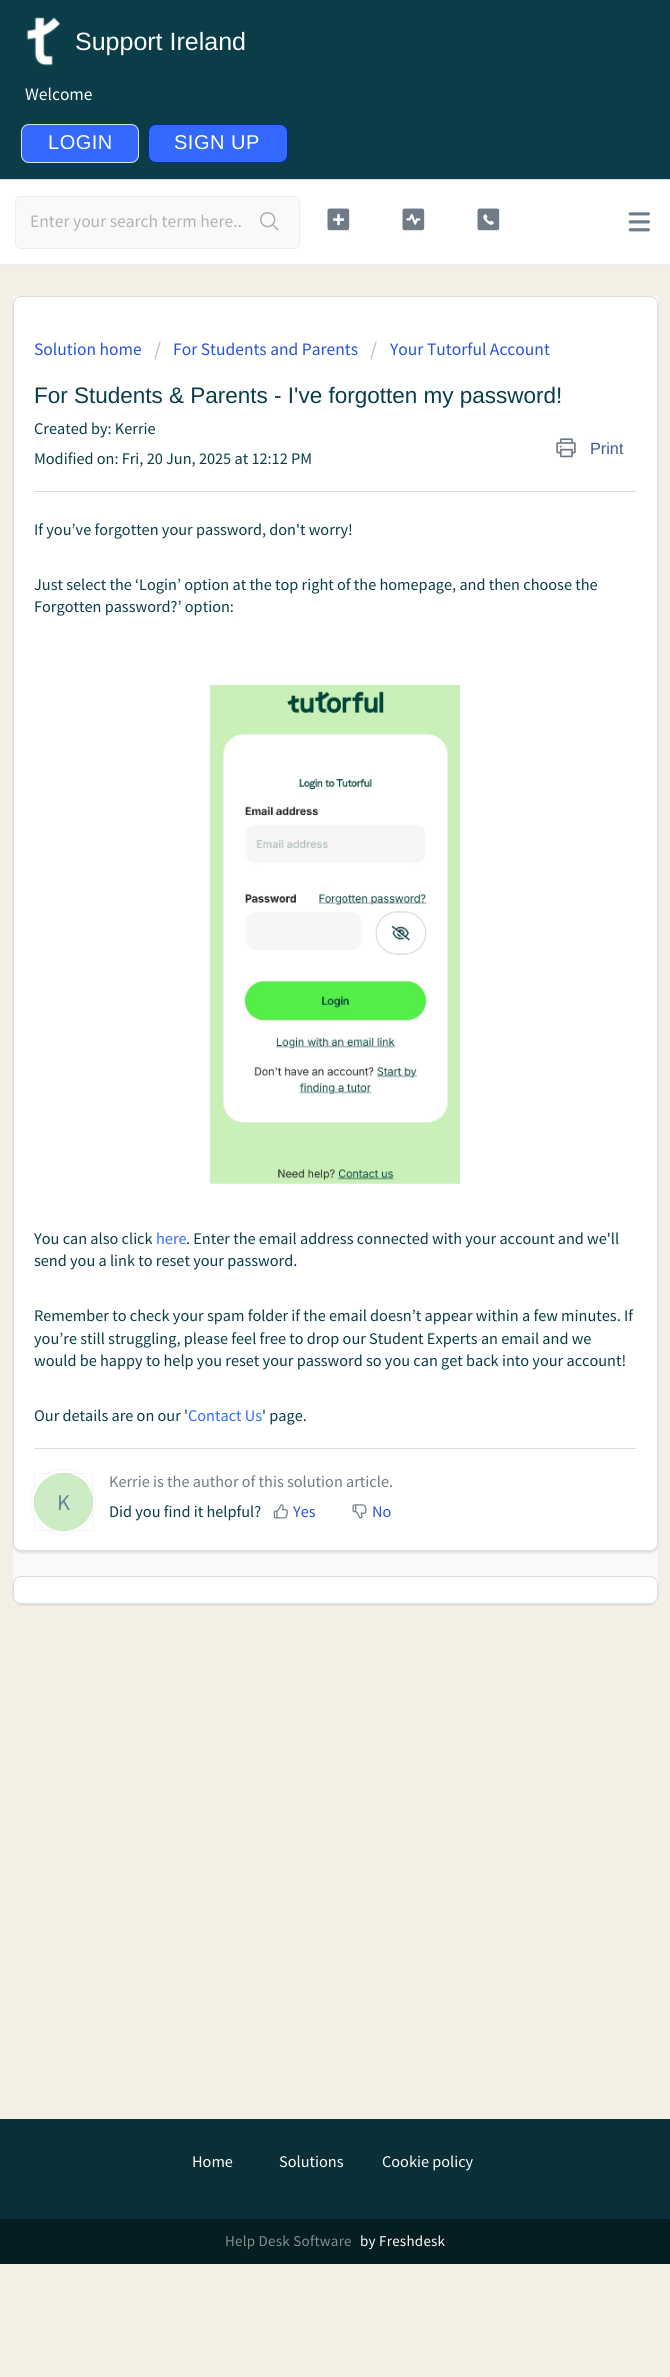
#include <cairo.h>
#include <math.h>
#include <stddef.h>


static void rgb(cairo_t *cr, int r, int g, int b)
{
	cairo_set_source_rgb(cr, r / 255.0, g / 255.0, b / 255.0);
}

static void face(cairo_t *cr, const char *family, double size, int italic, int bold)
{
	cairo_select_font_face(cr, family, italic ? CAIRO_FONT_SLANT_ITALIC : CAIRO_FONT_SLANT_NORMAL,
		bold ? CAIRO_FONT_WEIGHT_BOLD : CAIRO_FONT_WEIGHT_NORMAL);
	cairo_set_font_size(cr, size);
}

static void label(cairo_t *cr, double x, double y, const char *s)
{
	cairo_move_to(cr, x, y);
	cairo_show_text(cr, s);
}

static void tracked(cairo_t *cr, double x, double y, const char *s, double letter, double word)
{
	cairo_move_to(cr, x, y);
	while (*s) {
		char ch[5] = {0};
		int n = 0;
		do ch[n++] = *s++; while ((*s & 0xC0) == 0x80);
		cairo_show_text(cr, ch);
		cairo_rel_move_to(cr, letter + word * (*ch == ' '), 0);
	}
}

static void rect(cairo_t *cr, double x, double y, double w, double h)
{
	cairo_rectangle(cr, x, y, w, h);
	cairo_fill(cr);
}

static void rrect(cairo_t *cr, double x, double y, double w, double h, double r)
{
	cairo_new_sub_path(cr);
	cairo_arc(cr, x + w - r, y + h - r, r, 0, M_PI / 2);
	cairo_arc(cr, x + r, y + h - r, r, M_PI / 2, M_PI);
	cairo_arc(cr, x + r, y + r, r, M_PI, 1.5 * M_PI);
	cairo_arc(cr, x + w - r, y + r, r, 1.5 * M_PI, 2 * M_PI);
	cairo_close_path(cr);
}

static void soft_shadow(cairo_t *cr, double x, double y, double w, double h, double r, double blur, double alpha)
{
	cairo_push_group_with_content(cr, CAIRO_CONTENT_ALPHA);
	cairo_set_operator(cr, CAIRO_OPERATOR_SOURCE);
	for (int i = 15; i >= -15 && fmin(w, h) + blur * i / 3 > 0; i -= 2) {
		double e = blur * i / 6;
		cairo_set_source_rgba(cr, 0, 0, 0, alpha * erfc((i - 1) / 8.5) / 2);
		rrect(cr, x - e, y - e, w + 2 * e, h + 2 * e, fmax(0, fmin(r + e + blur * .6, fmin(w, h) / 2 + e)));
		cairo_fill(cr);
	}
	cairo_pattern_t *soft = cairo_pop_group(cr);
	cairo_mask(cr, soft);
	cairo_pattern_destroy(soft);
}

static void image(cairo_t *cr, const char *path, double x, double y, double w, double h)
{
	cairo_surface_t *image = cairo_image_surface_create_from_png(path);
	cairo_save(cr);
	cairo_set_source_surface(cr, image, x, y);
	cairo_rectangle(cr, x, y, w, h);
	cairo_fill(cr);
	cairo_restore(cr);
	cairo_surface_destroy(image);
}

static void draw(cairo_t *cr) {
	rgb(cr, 243, 239, 228);
	cairo_paint(cr);
	rgb(cr, 10, 61, 72);
	rect(cr, 0, 0, 670, 179);
	rgb(cr, 218, 223, 227);
	rect(cr, 0, 179, 670, 1);
	image(cr, "image0.png", 26, 17, 35, 49);
	face(cr, "Liberation Sans", 25, 0, 0);
	rgb(cr, 255, 255, 255);
	label(cr, 75, 50, "Support Ireland");
	face(cr, "Source Sans Pro", 17.5, 0, 0);
	label(cr, 25, 100, "Welcome");
	rgb(cr, 51, 105, 255);
	rrect(cr, 21.5, 124.5, 117, 38, 7.5);
	cairo_fill_preserve(cr);
	rgb(cr, 218, 223, 227);
	cairo_set_line_width(cr, 1);
	cairo_stroke(cr);
	face(cr, "Liberation Sans", 20, 0, 0);
	rgb(cr, 255, 255, 255);
	tracked(cr, 48, 149, "LOGIN", 0.5, 0);
	rgb(cr, 51, 105, 255);
	rrect(cr, 148.5, 124.5, 139, 38, 7.5);
	cairo_fill_preserve(cr);
	rgb(cr, 0, 41, 153);
	cairo_stroke(cr);
	rgb(cr, 255, 255, 255);
	tracked(cr, 174, 149, "SIGN UP", 0.5, 0);
	rgb(cr, 238, 238, 238);
	soft_shadow(cr, 0, 184, 670, 84, 0, 2.5, 1);
	rgb(cr, 255, 255, 255);
	rect(cr, 0, 180, 670, 84);
	image(cr, "image1.png", 628, 212, 22, 20);
	rgb(cr, 248, 249, 250);
	rrect(cr, 15.5, 196.5, 284, 52, 4.5);
	cairo_fill_preserve(cr);
	rgb(cr, 235, 238, 240);
	cairo_stroke(cr);
	face(cr, "Source Sans Pro", 17.5, 0, 0);
	rgb(cr, 178, 178, 178);
	label(cr, 30, 227, "Enter your search term here..");
	rgb(cr, 248, 249, 250);
	rrect(cr, 243, 198, 56, 50, 2.5);
	cairo_fill(cr);
	image(cr, "image2.png", 260, 212, 19, 19);
	image(cr, "image3.png", 327, 208, 23, 23);
	image(cr, "image4.png", 402, 208, 23, 23);
	image(cr, "image5.png", 477, 208, 23, 23);
	rect(cr, 13, 296, 645, 1308);
	rgb(cr, 63, 63, 68);
	soft_shadow(cr, 13, 298, 645, 1255, 8, 1, 0.15);
	rgb(cr, 255, 255, 255);
	rrect(cr, 13.5, 296.5, 644, 1254, 7.5);
	cairo_fill_preserve(cr);
	rgb(cr, 218, 223, 227);
	cairo_stroke(cr);
	rgb(cr, 39, 83, 215);
	label(cr, 34, 355, "Solution home");
	face(cr, "Source Sans Pro", 20, 0, 0);
	rgb(cr, 187, 187, 187);
	label(cr, 154, 356, "/");
	face(cr, "Source Sans Pro", 17.5, 0, 0);
	rgb(cr, 39, 83, 215);
	label(cr, 173, 355, "For Students and Parents");
	face(cr, "Source Sans Pro", 20, 0, 0);
	rgb(cr, 187, 187, 187);
	label(cr, 370, 356, "/");
	face(cr, "Source Sans Pro", 17.5, 0, 0);
	rgb(cr, 39, 83, 215);
	label(cr, 390, 355, "Your Tutorful Account");
	face(cr, "Liberation Sans", 22.5, 0, 0);
	rgb(cr, 10, 61, 72);
	label(cr, 34, 403, "For Students & Parents - I've forgotten my password!");
	image(cr, "image6.png", 556, 438, 20, 20);
	face(cr, "Liberation Sans", 16.25, 0, 0);
	rgb(cr, 59, 89, 152);
	label(cr, 590, 454, "Print");
	face(cr, "Source Sans Pro", 16.25, 0, 0);
	rgb(cr, 10, 61, 72);
	label(cr, 34, 434, "Created by: Kerrie");
	label(cr, 34, 464, "Modified on: Fri, 20 Jun, 2025 at 12:12 PM");
	rgb(cr, 220, 220, 220);
	rect(cr, 34, 491, 602, 1);
	rgb(cr, 10, 61, 72);
	label(cr, 34, 535, "If you’ve forgotten your password, don't worry!");
	label(cr, 34, 590, "Just select the ‘Login’ option at the top right of the homepage, and then choose the");
	label(cr, 34, 612, "Forgotten password?’ option:");
	image(cr, "image7.png", 210, 685, 250, 499);
	label(cr, 34, 1244, "You can also click");
	rgb(cr, 51, 105, 255);
	label(cr, 156, 1244, "here");
	rgb(cr, 10, 61, 72);
	label(cr, 186, 1244, ". Enter the email address connected with your account and we'll");
	label(cr, 34, 1266, "send you a link to reset your password.");
	label(cr, 34, 1321, "Remember to check your spam folder if the email doesn’t appear within a few minutes. If");
	label(cr, 34, 1344, "you’re still struggling, please feel free to drop our Student Experts an email and we");
	label(cr, 34, 1366, "would be happy to help you reset your password so you can get back into your account!");
	label(cr, 34, 1421, "Our details are on our '");
	rgb(cr, 51, 105, 255);
	label(cr, 188, 1421, "Contact Us");
	rgb(cr, 10, 61, 72);
	label(cr, 262, 1421, "' page.");
	rgb(cr, 220, 220, 220);
	rect(cr, 34, 1448, 602, 1);
	rgb(cr, 111, 124, 135);
	label(cr, 109, 1487, "Kerrie is the author of this solution article.");
	cairo_new_path(cr);
	cairo_arc(cr, 63, 1502, 32.5, 0, 2 * M_PI);
	rgb(cr, 243, 245, 247);
	cairo_stroke(cr);
	rgb(cr, 205, 235, 196);
	rrect(cr, 34, 1473, 59, 58, 29);
	cairo_fill(cr);
	cairo_rectangle(cr, 34.5, 1473.5, 58, 57);
	cairo_set_source_rgba(cr, 0, 0, 0, 0.04);
	cairo_stroke(cr);
	face(cr, "Source Sans Pro", 22.5, 0, 0);
	rgb(cr, 99, 134, 153);
	label(cr, 57, 1510, "K");
	face(cr, "Source Sans Pro", 16.25, 0, 0);
	rgb(cr, 10, 61, 72);
	label(cr, 109, 1517, "Did you find it helpful?");
	image(cr, "image8.png", 273, 1504, 15, 15);
	rgb(cr, 39, 83, 215);
	label(cr, 293, 1517, "Yes");
	image(cr, "image9.png", 352, 1504, 15, 15);
	label(cr, 372, 1517, "No");
	rgb(cr, 63, 63, 68);
	soft_shadow(cr, 13, 1578, 645, 27, 8, 1, 0.15);
	rgb(cr, 255, 255, 255);
	rrect(cr, 13.5, 1576.5, 644, 27, 7.5);
	cairo_fill_preserve(cr);
	rgb(cr, 218, 223, 227);
	cairo_stroke(cr);
	rgb(cr, 10, 47, 55);
	rect(cr, 0, 2119, 670, 100);
	rgb(cr, 255, 255, 255);
	label(cr, 192, 2167, "Home");
	label(cr, 279, 2167, "Solutions");
	label(cr, 382, 2167, "Cookie policy");
	rgb(cr, 6, 29, 33);
	rect(cr, 0, 2219, 670, 45);
	face(cr, "Source Sans Pro", 15, 0, 0);
	rgb(cr, 131, 142, 144);
	tracked(cr, 225, 2246, "Help Desk Software", 0.25, 0);
	rgb(cr, 255, 255, 255);
	tracked(cr, 360, 2246, "by Freshdesk", 0.25, 0);
}

int main(void) {
	cairo_surface_t *surface = cairo_image_surface_create(CAIRO_FORMAT_RGB24, 670, 2377);
	cairo_t *cr = cairo_create(surface);
	cairo_font_options_t *options = cairo_font_options_create();
	cairo_font_options_set_hint_metrics(options, CAIRO_HINT_METRICS_OFF);
	cairo_font_options_set_hint_style(options, CAIRO_HINT_STYLE_NONE);
	cairo_set_font_options(cr, options);
	cairo_set_miter_limit(cr, 4);
	draw(cr);
	cairo_surface_write_to_png(surface, "render.png");
	cairo_font_options_destroy(options);
	cairo_destroy(cr);
	cairo_surface_destroy(surface);
	return 0;
}
